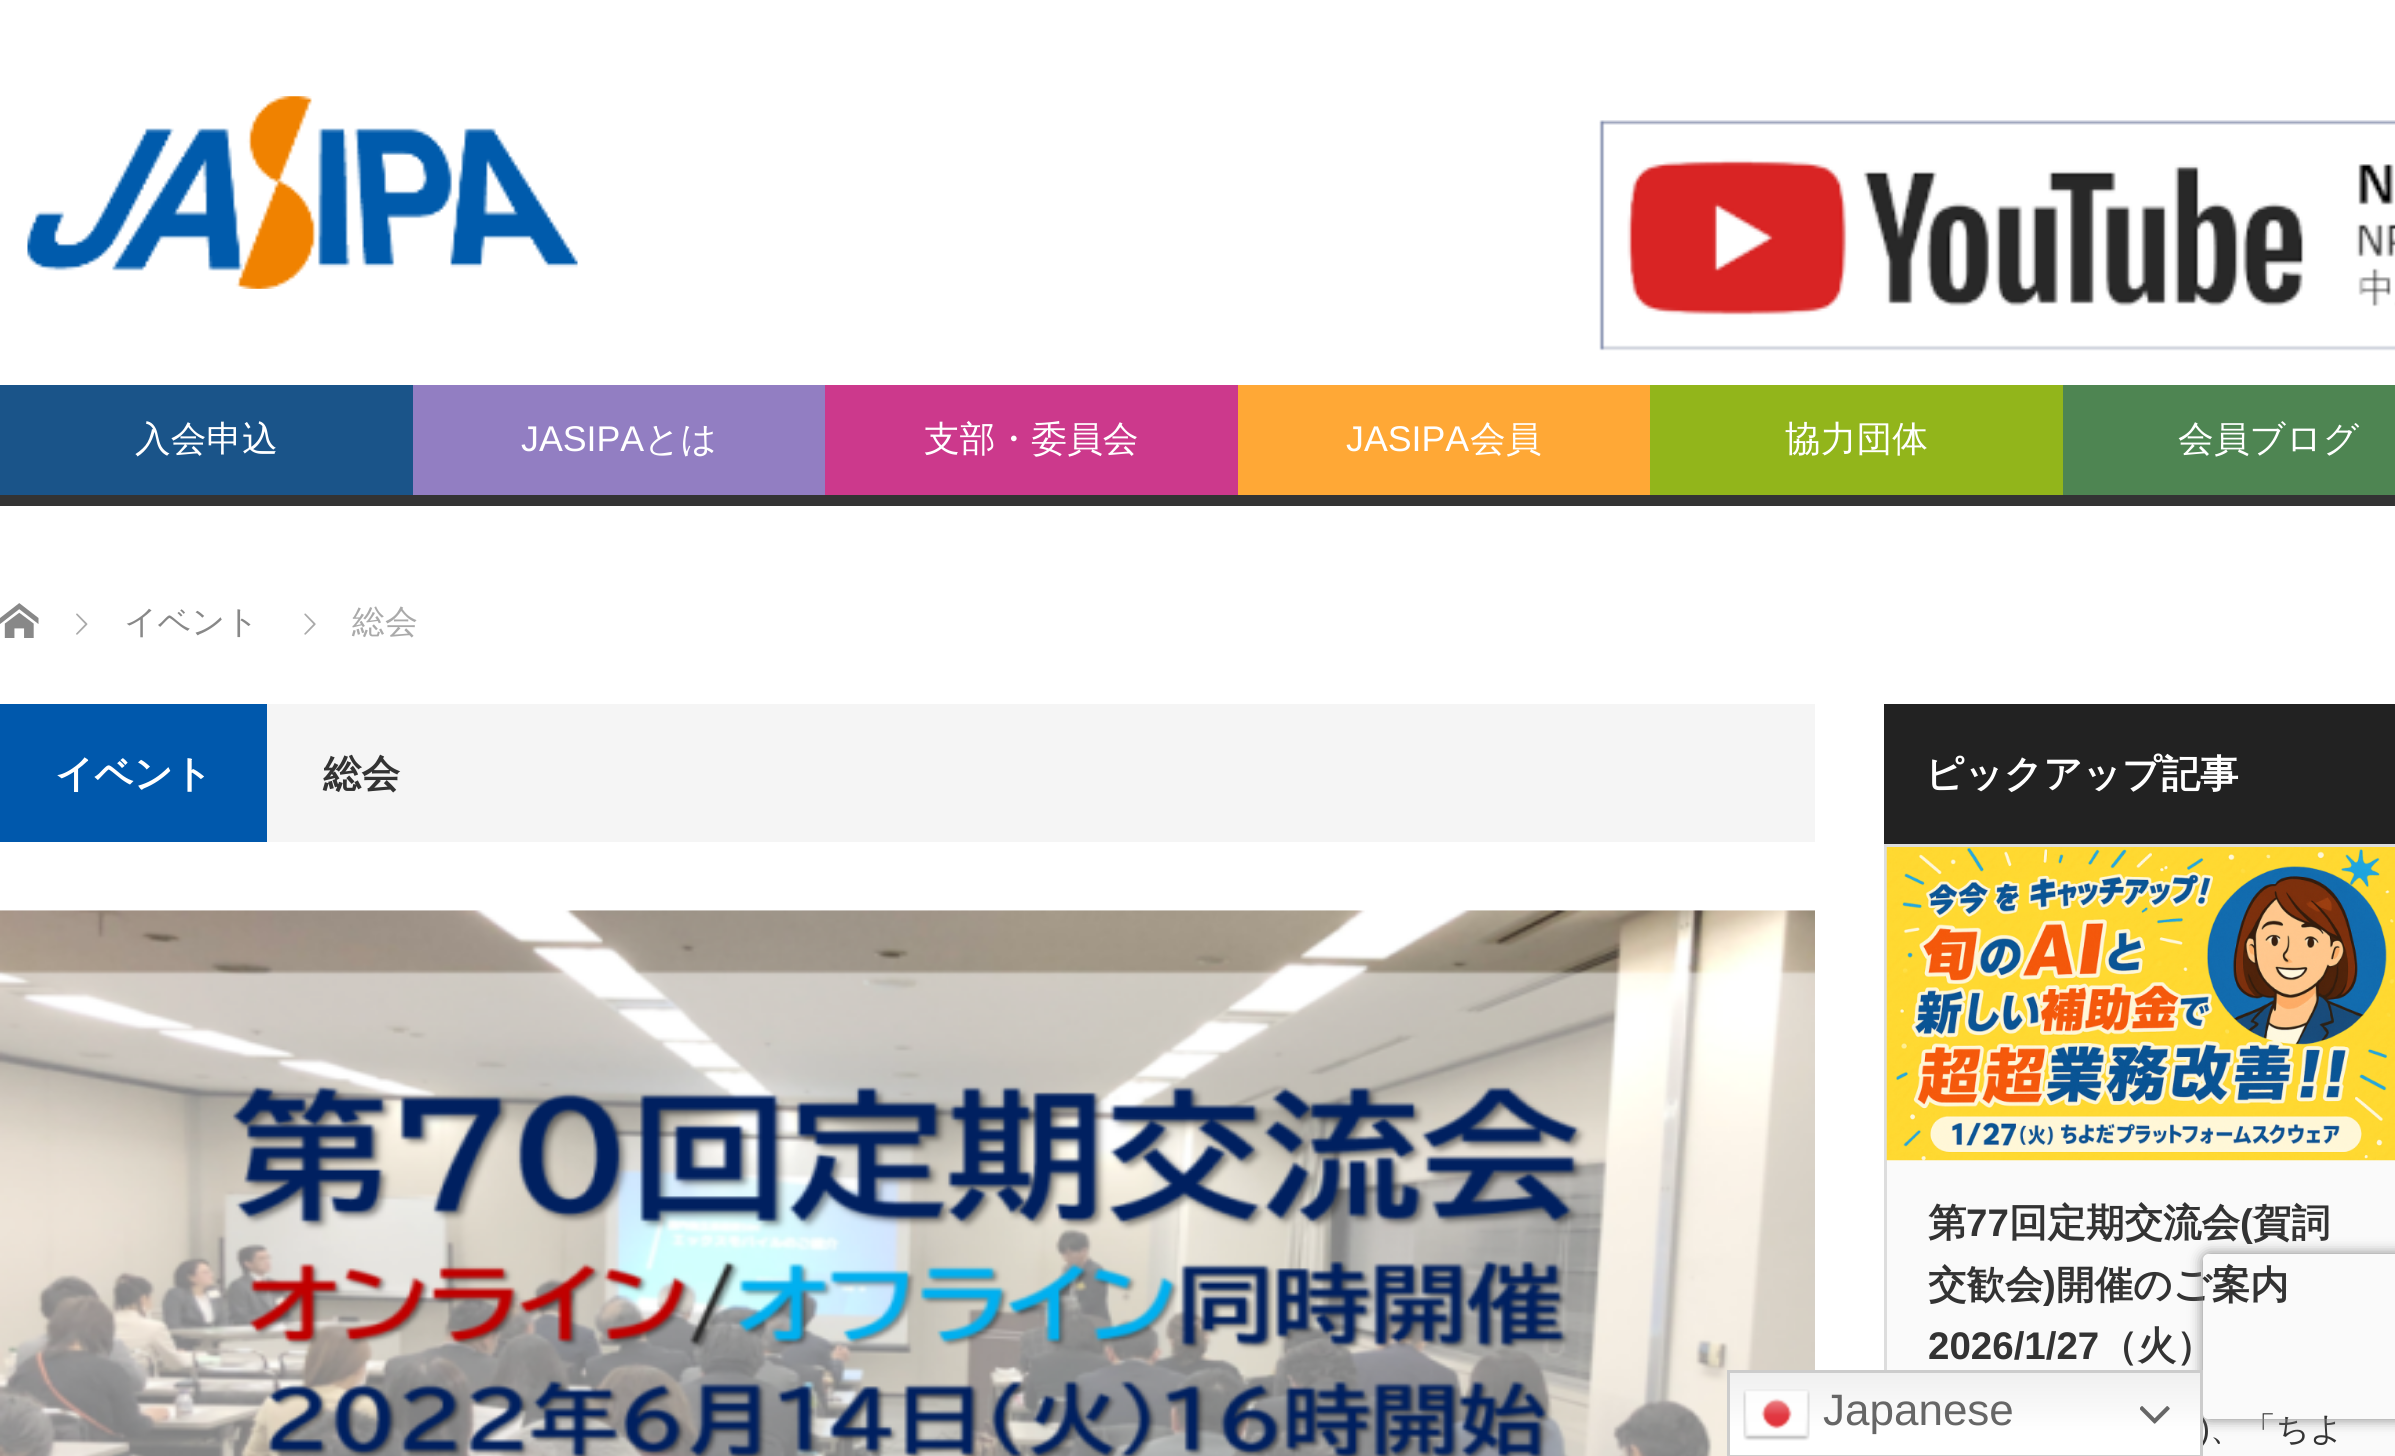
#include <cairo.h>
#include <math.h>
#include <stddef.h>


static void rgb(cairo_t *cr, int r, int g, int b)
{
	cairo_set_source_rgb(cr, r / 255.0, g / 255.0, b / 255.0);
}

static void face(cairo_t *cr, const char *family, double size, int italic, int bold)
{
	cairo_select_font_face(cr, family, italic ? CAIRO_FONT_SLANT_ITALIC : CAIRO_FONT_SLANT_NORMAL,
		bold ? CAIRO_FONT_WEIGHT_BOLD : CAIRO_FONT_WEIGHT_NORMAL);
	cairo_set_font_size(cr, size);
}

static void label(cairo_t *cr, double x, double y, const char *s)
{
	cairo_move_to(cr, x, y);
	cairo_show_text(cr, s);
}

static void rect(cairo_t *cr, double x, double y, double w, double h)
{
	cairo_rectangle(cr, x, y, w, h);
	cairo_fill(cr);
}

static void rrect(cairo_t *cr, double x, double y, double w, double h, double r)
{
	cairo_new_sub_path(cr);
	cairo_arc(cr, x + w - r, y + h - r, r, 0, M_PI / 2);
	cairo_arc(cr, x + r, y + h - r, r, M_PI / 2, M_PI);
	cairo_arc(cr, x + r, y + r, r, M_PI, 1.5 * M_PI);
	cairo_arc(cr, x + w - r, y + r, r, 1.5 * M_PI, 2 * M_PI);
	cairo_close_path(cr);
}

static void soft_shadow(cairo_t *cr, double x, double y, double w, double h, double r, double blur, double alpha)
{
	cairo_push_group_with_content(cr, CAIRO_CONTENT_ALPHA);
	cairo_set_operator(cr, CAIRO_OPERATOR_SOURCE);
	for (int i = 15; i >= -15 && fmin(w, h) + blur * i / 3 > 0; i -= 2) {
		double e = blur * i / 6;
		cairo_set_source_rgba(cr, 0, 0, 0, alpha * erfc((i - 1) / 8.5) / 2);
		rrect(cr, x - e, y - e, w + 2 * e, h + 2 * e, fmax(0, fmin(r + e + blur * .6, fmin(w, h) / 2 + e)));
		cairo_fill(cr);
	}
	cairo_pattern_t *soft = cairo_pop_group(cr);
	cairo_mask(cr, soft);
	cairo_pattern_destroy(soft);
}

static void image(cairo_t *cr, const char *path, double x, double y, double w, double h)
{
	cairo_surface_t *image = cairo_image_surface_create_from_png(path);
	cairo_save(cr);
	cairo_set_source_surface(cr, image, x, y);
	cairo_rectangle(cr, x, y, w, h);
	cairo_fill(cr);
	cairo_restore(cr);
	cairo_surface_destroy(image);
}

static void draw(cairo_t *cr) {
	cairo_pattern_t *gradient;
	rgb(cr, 255, 255, 255);
	cairo_paint(cr);
	rgb(cr, 51, 51, 51);
	rect(cr, 0, 495, 2395, 11);
	image(cr, "image0.png", 27, 96, 551, 193);
	image(cr, "image1.png", 1599, 120, 796, 231);
	rgb(cr, 26, 84, 137);
	rect(cr, 0, 385, 413, 110);
	face(cr, "WenQuanYi Zen Hei Medium", 35.75, 0, 0);
	rgb(cr, 255, 255, 255);
	label(cr, 135, 451, "入会申込");
	rgb(cr, 146, 126, 194);
	rect(cr, 413, 385, 412, 110);
	face(cr, "Liberation Sans", 35.75, 0, 0);
	rgb(cr, 255, 255, 255);
	label(cr, 521, 451, "JASIPA");
	face(cr, "WenQuanYi Zen Hei Medium", 35.75, 0, 0);
	label(cr, 644, 451, "とは");
	rgb(cr, 204, 57, 140);
	rect(cr, 825, 385, 413, 110);
	rgb(cr, 255, 255, 255);
	label(cr, 924, 451, "支部・委員会");
	rgb(cr, 255, 168, 54);
	rect(cr, 1238, 385, 412, 110);
	face(cr, "Liberation Sans", 35.75, 0, 0);
	rgb(cr, 255, 255, 255);
	label(cr, 1346, 451, "JASIPA");
	face(cr, "WenQuanYi Zen Hei Medium", 35.75, 0, 0);
	label(cr, 1470, 451, "会員");
	rgb(cr, 146, 181, 27);
	rect(cr, 1650, 385, 413, 110);
	rgb(cr, 255, 255, 255);
	label(cr, 1785, 451, "協力団体");
	rgb(cr, 78, 133, 82);
	rect(cr, 2063, 385, 332, 110);
	rgb(cr, 255, 255, 255);
	label(cr, 2178, 451, "会員ブログ");
	image(cr, "image2.png", 0, 603, 39, 35);
	image(cr, "image3.png", 76, 613, 12, 22);
	face(cr, "WenQuanYi Zen Hei Medium", 33, 0, 0);
	rgb(cr, 136, 136, 136);
	label(cr, 124, 633, "イベント");
	image(cr, "image4.png", 304, 613, 12, 22);
	rgb(cr, 170, 170, 170);
	label(cr, 352, 633, "総会");
	rgb(cr, 245, 245, 245);
	rect(cr, 267, 704, 1548, 138);
	rgb(cr, 0, 88, 172);
	rect(cr, 0, 704, 267, 138);
	face(cr, "WenQuanYi Zen Hei", 38.5, 0, 1);
	rgb(cr, 255, 255, 255);
	label(cr, 55, 787, "イベント");
	rgb(cr, 51, 51, 51);
	label(cr, 323, 787, "総会");
	image(cr, "image5.png", 0, 910, 1815, 546);
	rgb(cr, 250, 250, 250);
	rect(cr, 1887, 1160, 508, 296);
	rgb(cr, 34, 34, 34);
	rect(cr, 1884, 704, 511, 140);
	rgb(cr, 255, 255, 255);
	label(cr, 1925, 787, "ピックアップ記事");
	cairo_rectangle(cr, 1885.5, 845.5, 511, 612);
	rgb(cr, 221, 221, 221);
	cairo_set_line_width(cr, 3);
	cairo_stroke(cr);
	image(cr, "image6.png", 1886, 847, 509, 314);
	rgb(cr, 51, 51, 51);
	label(cr, 1928, 1236, "第");
	face(cr, "Liberation Sans", 38.5, 0, 1);
	label(cr, 1966, 1236, "77");
	face(cr, "WenQuanYi Zen Hei", 38.5, 0, 1);
	label(cr, 2009, 1236, "回定期交流会");
	face(cr, "Liberation Sans", 38.5, 0, 1);
	label(cr, 2240, 1236, "(");
	face(cr, "WenQuanYi Zen Hei", 38.5, 0, 1);
	label(cr, 2253, 1236, "賀詞");
	label(cr, 1928, 1298, "交歓会");
	face(cr, "Liberation Sans", 38.5, 0, 1);
	label(cr, 2043, 1298, ")");
	face(cr, "WenQuanYi Zen Hei", 38.5, 0, 1);
	label(cr, 2056, 1298, "開催のご案内");
	face(cr, "Liberation Sans", 38.5, 0, 1);
	label(cr, 1928, 1359, "2026/1/27");
	face(cr, "WenQuanYi Zen Hei", 38.5, 0, 1);
	label(cr, 2099, 1359, "（火）");
	face(cr, "Liberation Sans", 33, 0, 0);
	label(cr, 2199, 1440, ")");
	face(cr, "WenQuanYi Zen Hei Medium", 33, 0, 0);
	label(cr, 2210, 1440, "、「ちよ");
	cairo_save(cr);
	cairo_set_fill_rule(cr, CAIRO_FILL_RULE_EVEN_ODD);
	cairo_new_path(cr);
	cairo_move_to(cr, 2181, 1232);
	cairo_line_to(cr, 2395, 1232);
	cairo_line_to(cr, 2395, 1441);
	cairo_line_to(cr, 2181, 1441);
	cairo_close_path(cr);
	cairo_move_to(cr, 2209, 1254);
	cairo_line_to(cr, 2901, 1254);
	cairo_curve_to(cr, 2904.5, 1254, 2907, 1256.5, 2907, 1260);
	cairo_line_to(cr, 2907, 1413);
	cairo_curve_to(cr, 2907, 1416.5, 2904.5, 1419, 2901, 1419);
	cairo_line_to(cr, 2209, 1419);
	cairo_curve_to(cr, 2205.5, 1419, 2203, 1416.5, 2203, 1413);
	cairo_line_to(cr, 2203, 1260);
	cairo_curve_to(cr, 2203, 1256.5, 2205.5, 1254, 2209, 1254);
	cairo_close_path(cr);
	cairo_clip(cr);
	rgb(cr, 128, 128, 128);
	soft_shadow(cr, 2203, 1254, 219, 165, 6, 7, 1);
	cairo_restore(cr);
	gradient = cairo_pattern_create_linear(1965, 1370, 1965, 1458);
	cairo_pattern_add_color_stop_rgba(gradient, 0, 0.937, 0.937, 0.937, 1);
	cairo_pattern_add_color_stop_rgba(gradient, 0.7, 1, 1, 1, 1);
	cairo_set_source(cr, gradient);
	cairo_pattern_destroy(gradient);
	rect(cr, 1730, 1373, 470, 82);
	cairo_rectangle(cr, 1728.5, 1371.5, 473, 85);
	rgb(cr, 204, 204, 204);
	cairo_stroke(cr);
	image(cr, "image7.png", 1743, 1389, 67, 52);
	face(cr, "Liberation Sans", 44, 0, 0);
	rgb(cr, 102, 102, 102);
	label(cr, 1823, 1425, "Japanese");
	image(cr, "image8.png", 2140, 1406, 30, 18);
}

int main(void) {
	cairo_surface_t *surface = cairo_image_surface_create(CAIRO_FORMAT_RGB24, 2395, 1456);
	cairo_t *cr = cairo_create(surface);
	cairo_font_options_t *options = cairo_font_options_create();
	cairo_font_options_set_hint_metrics(options, CAIRO_HINT_METRICS_OFF);
	cairo_font_options_set_hint_style(options, CAIRO_HINT_STYLE_NONE);
	cairo_set_font_options(cr, options);
	cairo_set_miter_limit(cr, 4);
	draw(cr);
	cairo_surface_write_to_png(surface, "render.png");
	cairo_font_options_destroy(options);
	cairo_destroy(cr);
	cairo_surface_destroy(surface);
	return 0;
}
